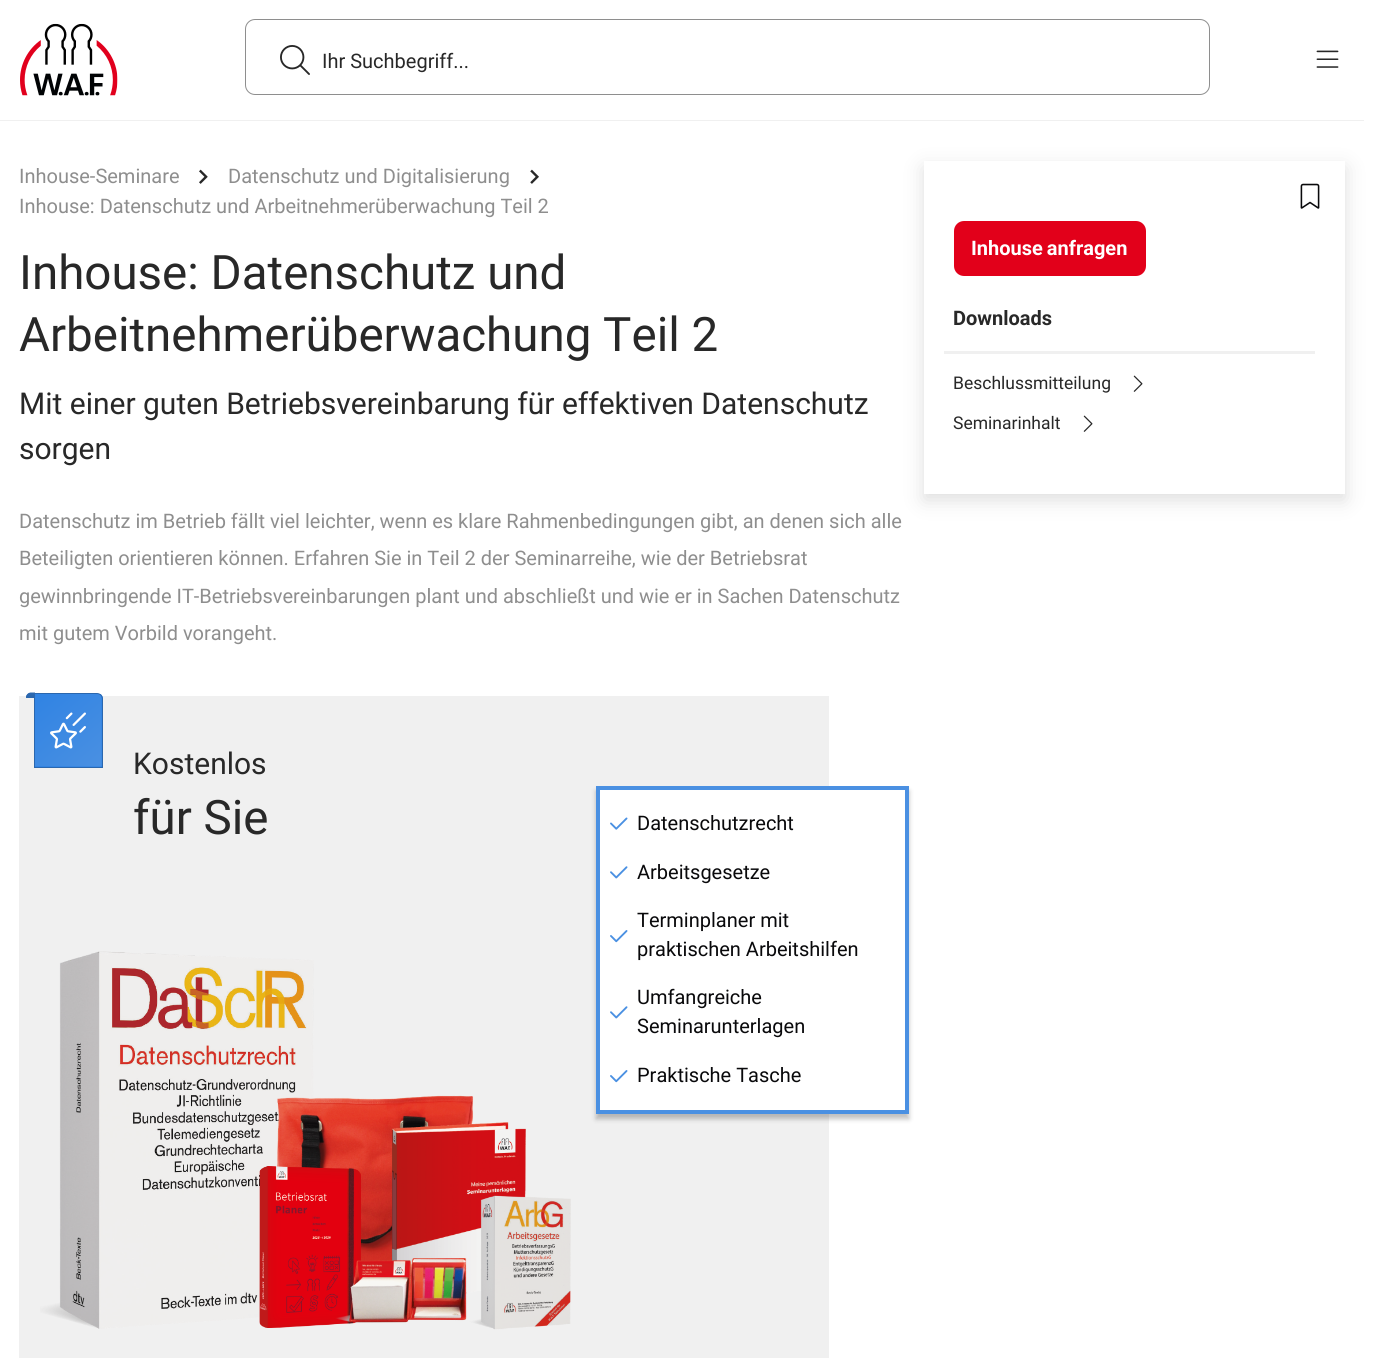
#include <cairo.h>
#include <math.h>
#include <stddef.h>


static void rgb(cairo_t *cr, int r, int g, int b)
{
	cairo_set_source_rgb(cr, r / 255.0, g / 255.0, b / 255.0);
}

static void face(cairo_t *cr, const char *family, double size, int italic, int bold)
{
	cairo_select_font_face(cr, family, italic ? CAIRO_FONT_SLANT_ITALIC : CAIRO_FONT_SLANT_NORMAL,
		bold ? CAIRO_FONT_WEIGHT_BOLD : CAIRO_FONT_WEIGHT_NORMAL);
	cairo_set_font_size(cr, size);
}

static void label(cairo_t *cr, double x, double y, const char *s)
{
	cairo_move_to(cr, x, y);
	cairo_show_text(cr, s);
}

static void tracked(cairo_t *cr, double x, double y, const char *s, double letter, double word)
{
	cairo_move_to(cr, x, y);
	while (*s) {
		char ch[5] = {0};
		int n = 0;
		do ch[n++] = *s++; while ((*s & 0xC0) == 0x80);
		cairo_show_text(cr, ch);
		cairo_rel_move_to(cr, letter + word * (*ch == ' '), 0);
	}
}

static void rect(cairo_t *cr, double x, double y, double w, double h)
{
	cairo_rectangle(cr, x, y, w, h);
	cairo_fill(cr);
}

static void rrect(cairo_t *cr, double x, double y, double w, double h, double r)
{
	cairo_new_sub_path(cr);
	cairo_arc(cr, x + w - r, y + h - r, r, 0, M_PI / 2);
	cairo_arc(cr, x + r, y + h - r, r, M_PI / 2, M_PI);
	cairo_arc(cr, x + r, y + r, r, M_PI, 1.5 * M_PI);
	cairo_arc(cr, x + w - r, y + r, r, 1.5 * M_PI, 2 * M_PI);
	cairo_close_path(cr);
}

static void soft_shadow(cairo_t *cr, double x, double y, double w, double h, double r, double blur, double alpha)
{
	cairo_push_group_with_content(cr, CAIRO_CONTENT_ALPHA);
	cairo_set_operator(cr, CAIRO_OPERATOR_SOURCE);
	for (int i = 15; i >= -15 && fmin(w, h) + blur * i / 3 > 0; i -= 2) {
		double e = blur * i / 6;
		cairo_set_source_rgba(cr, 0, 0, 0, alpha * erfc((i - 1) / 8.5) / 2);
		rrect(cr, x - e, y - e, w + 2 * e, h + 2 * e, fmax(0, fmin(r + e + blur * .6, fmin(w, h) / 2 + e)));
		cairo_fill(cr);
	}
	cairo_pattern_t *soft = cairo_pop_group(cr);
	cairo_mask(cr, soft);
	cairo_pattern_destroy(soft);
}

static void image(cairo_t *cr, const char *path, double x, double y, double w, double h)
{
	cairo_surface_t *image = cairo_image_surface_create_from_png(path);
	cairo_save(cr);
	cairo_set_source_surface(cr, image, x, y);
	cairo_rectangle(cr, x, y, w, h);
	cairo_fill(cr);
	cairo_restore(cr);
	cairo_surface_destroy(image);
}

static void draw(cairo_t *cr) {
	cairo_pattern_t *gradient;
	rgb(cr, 255, 255, 255);
	cairo_paint(cr);
	rgb(cr, 240, 240, 240);
	rect(cr, 0, 120, 1364, 1);
	image(cr, "image0.png", 20, 23, 98, 73);
	image(cr, "image1.png", 280, 45, 30, 30);
	rrect(cr, 245.5, 19.5, 964, 75, 9.5);
	rgb(cr, 142, 142, 142);
	cairo_set_line_width(cr, 1);
	cairo_stroke(cr);
	face(cr, "Roboto", 20, 0, 0);
	rgb(cr, 40, 40, 40);
	label(cr, 322, 68, "Ihr Suchbegriff...");
	image(cr, "image2.png", 1316, 50, 23, 18);
	rgb(cr, 142, 142, 142);
	label(cr, 19, 183, "Inhouse-Seminare");
	image(cr, "image3.png", 199, 169, 9, 15);
	label(cr, 228, 183, "Datenschutz und Digitalisierung");
	image(cr, "image4.png", 530, 169, 9, 15);
	label(cr, 19, 213, "Inhouse: Datenschutz und Arbeitnehmerüberwachung Teil 2");
	face(cr, "Roboto", 47.5, 0, 0);
	rgb(cr, 40, 40, 40);
	label(cr, 19, 289, "Inhouse: Datenschutz und");
	label(cr, 19, 351, "Arbeitnehmerüberwachung Teil 2");
	face(cr, "Roboto", 30, 0, 0);
	label(cr, 19, 414, "Mit einer guten Betriebsvereinbarung für effektiven Datenschutz");
	label(cr, 19, 459, "sorgen");
	face(cr, "Roboto", 20, 0, 0);
	rgb(cr, 142, 142, 142);
	label(cr, 19, 528, "Datenschutz im Betrieb fällt viel leichter, wenn es klare Rahmenbedingungen gibt, an denen sich alle");
	label(cr, 19, 565, "Beteiligten orientieren können. Erfahren Sie in Teil 2 der Seminarreihe, wie der Betriebsrat");
	label(cr, 19, 603, "gewinnbringende IT-Betriebsvereinbarungen plant und abschließt und wie er in Sachen Datenschutz");
	label(cr, 19, 640, "mit gutem Vorbild vorangeht.");
	rgb(cr, 240, 240, 240);
	rect(cr, 19, 696, 810, 662);
	gradient = cairo_pattern_create_linear(37, 692, 100, 768);
	cairo_pattern_add_color_stop_rgba(gradient, 0, 0.188, 0.514, 0.89, 1);
	cairo_pattern_add_color_stop_rgba(gradient, 1, 0.29, 0.565, 0.886, 1);
	cairo_set_source(cr, gradient);
	cairo_pattern_destroy(gradient);
	rect(cr, 35, 694, 66, 72);
	cairo_save(cr);
	cairo_new_path(cr);
	cairo_move_to(cr, 34, 693);
	cairo_line_to(cr, 97, 693);
	cairo_curve_to(cr, 100.5, 693, 103, 695.5, 103, 699);
	cairo_line_to(cr, 103, 768);
	cairo_line_to(cr, 34, 768);
	cairo_close_path(cr);
	cairo_clip(cr);
	gradient = cairo_pattern_create_linear(103, 692, 166, 768);
	cairo_pattern_add_color_stop_rgba(gradient, 0, 0.188, 0.514, 0.89, 1);
	cairo_pattern_add_color_stop_rgba(gradient, 1, 0.29, 0.565, 0.886, 1);
	cairo_set_source(cr, gradient);
	cairo_pattern_destroy(gradient);
	rect(cr, 101, 694, 2, 72);
	cairo_restore(cr);
	gradient = cairo_pattern_create_linear(37, 765, 100, 840);
	cairo_pattern_add_color_stop_rgba(gradient, 0, 0.188, 0.514, 0.89, 1);
	cairo_pattern_add_color_stop_rgba(gradient, 1, 0.29, 0.565, 0.886, 1);
	cairo_set_source(cr, gradient);
	cairo_pattern_destroy(gradient);
	rect(cr, 35, 766, 66, 1);
	gradient = cairo_pattern_create_linear(103, 765, 166, 840);
	cairo_pattern_add_color_stop_rgba(gradient, 0, 0.188, 0.514, 0.89, 1);
	cairo_pattern_add_color_stop_rgba(gradient, 1, 0.29, 0.565, 0.886, 1);
	cairo_set_source(cr, gradient);
	cairo_pattern_destroy(gradient);
	rect(cr, 101, 766, 2, 1);
	cairo_new_path(cr);
	cairo_move_to(cr, 34.5, 693.5);
	cairo_line_to(cr, 97, 693.5);
	cairo_curve_to(cr, 100, 693.5, 102.5, 696, 102.5, 699);
	cairo_line_to(cr, 102.5, 767.5);
	cairo_line_to(cr, 34.5, 767.5);
	cairo_close_path(cr);
	rgb(cr, 43, 103, 174);
	cairo_stroke(cr);
	cairo_new_path(cr);
	cairo_move_to(cr, 31, 693);
	cairo_line_to(cr, 35, 693);
	cairo_line_to(cr, 35, 698);
	cairo_line_to(cr, 26, 698);
	cairo_curve_to(cr, 26, 695, 28, 693, 31, 693);
	cairo_close_path(cr);
	cairo_fill(cr);
	cairo_set_fill_rule(cr, CAIRO_FILL_RULE_EVEN_ODD);
	cairo_new_path(cr);
	cairo_move_to(cr, 31, 692.5);
	cairo_line_to(cr, 35, 692.5);
	cairo_line_to(cr, 35, 697.5);
	cairo_line_to(cr, 26, 697.5);
	cairo_curve_to(cr, 26, 694.5, 28.5, 692.5, 31, 692.5);
	cairo_close_path(cr);
	cairo_move_to(cr, 31, 694);
	cairo_line_to(cr, 35, 694);
	cairo_line_to(cr, 35, 696);
	cairo_line_to(cr, 27.5, 696);
	cairo_line_to(cr, 27.5, 697.5);
	cairo_curve_to(cr, 27.5, 695.5, 29, 694, 31, 694);
	cairo_close_path(cr);
	cairo_fill(cr);
	image(cr, "image5.png", 50, 712, 36, 37);
	face(cr, "Roboto", 30, 0, 0);
	rgb(cr, 40, 40, 40);
	label(cr, 133, 774, "Kostenlos");
	face(cr, "Roboto", 47.5, 0, 0);
	label(cr, 133, 834, "für Sie");
	image(cr, "image6.png", 40, 951, 531, 379);
	rgb(cr, 0, 0, 0);
	soft_shadow(cr, 596, 791, 313, 328, 0, 2.5, 0.25);
	rgb(cr, 255, 255, 255);
	cairo_rectangle(cr, 598, 788, 309, 324);
	cairo_fill_preserve(cr);
	rgb(cr, 74, 144, 226);
	cairo_set_line_width(cr, 4);
	cairo_stroke(cr);
	image(cr, "image7.png", 610, 817, 18, 13);
	face(cr, "Roboto", 20, 0, 0);
	rgb(cr, 9, 9, 11);
	label(cr, 637, 830, "Datenschutzrecht");
	image(cr, "image8.png", 610, 866, 18, 13);
	label(cr, 637, 879, "Arbeitsgesetze");
	image(cr, "image9.png", 610, 930, 18, 13);
	label(cr, 637, 927, "Terminplaner mit");
	label(cr, 637, 956, "praktischen Arbeitshilfen");
	image(cr, "image8.png", 610, 1006, 18, 13);
	label(cr, 637, 1004, "Umfangreiche");
	label(cr, 637, 1033, "Seminarunterlagen");
	image(cr, "image9.png", 610, 1070, 18, 13);
	label(cr, 637, 1082, "Praktische Tasche");
	rgb(cr, 222, 222, 222);
	soft_shadow(cr, 924, 168, 421, 332, 0, 9.5, 1);
	rgb(cr, 255, 255, 255);
	rect(cr, 924, 161, 421, 333);
	image(cr, "image10.png", 1300, 183, 20, 26);
	rgb(cr, 226, 0, 26);
	rrect(cr, 954, 221, 192, 55, 10);
	cairo_fill(cr);
	face(cr, "Roboto", 20, 0, 1);
	rgb(cr, 255, 255, 255);
	tracked(cr, 971, 255, "Inhouse anfragen", 0, -1);
	rgb(cr, 40, 40, 40);
	label(cr, 953, 325, "Downloads");
	rgb(cr, 240, 240, 240);
	rect(cr, 944, 351, 371, 3);
	face(cr, "Roboto", 17.5, 0, 0);
	rgb(cr, 40, 40, 40);
	label(cr, 953, 389, "Beschlussmitteilung");
	image(cr, "image11.png", 1133, 375, 10, 17);
	label(cr, 953, 429, "Seminarinhalt");
	image(cr, "image11.png", 1083, 415, 10, 17);
}

int main(void) {
	cairo_surface_t *surface = cairo_image_surface_create(CAIRO_FORMAT_RGB24, 1382, 1358);
	cairo_t *cr = cairo_create(surface);
	cairo_font_options_t *options = cairo_font_options_create();
	cairo_font_options_set_hint_metrics(options, CAIRO_HINT_METRICS_OFF);
	cairo_font_options_set_hint_style(options, CAIRO_HINT_STYLE_NONE);
	cairo_set_font_options(cr, options);
	cairo_set_miter_limit(cr, 4);
	draw(cr);
	cairo_surface_write_to_png(surface, "render.png");
	cairo_font_options_destroy(options);
	cairo_destroy(cr);
	cairo_surface_destroy(surface);
	return 0;
}
